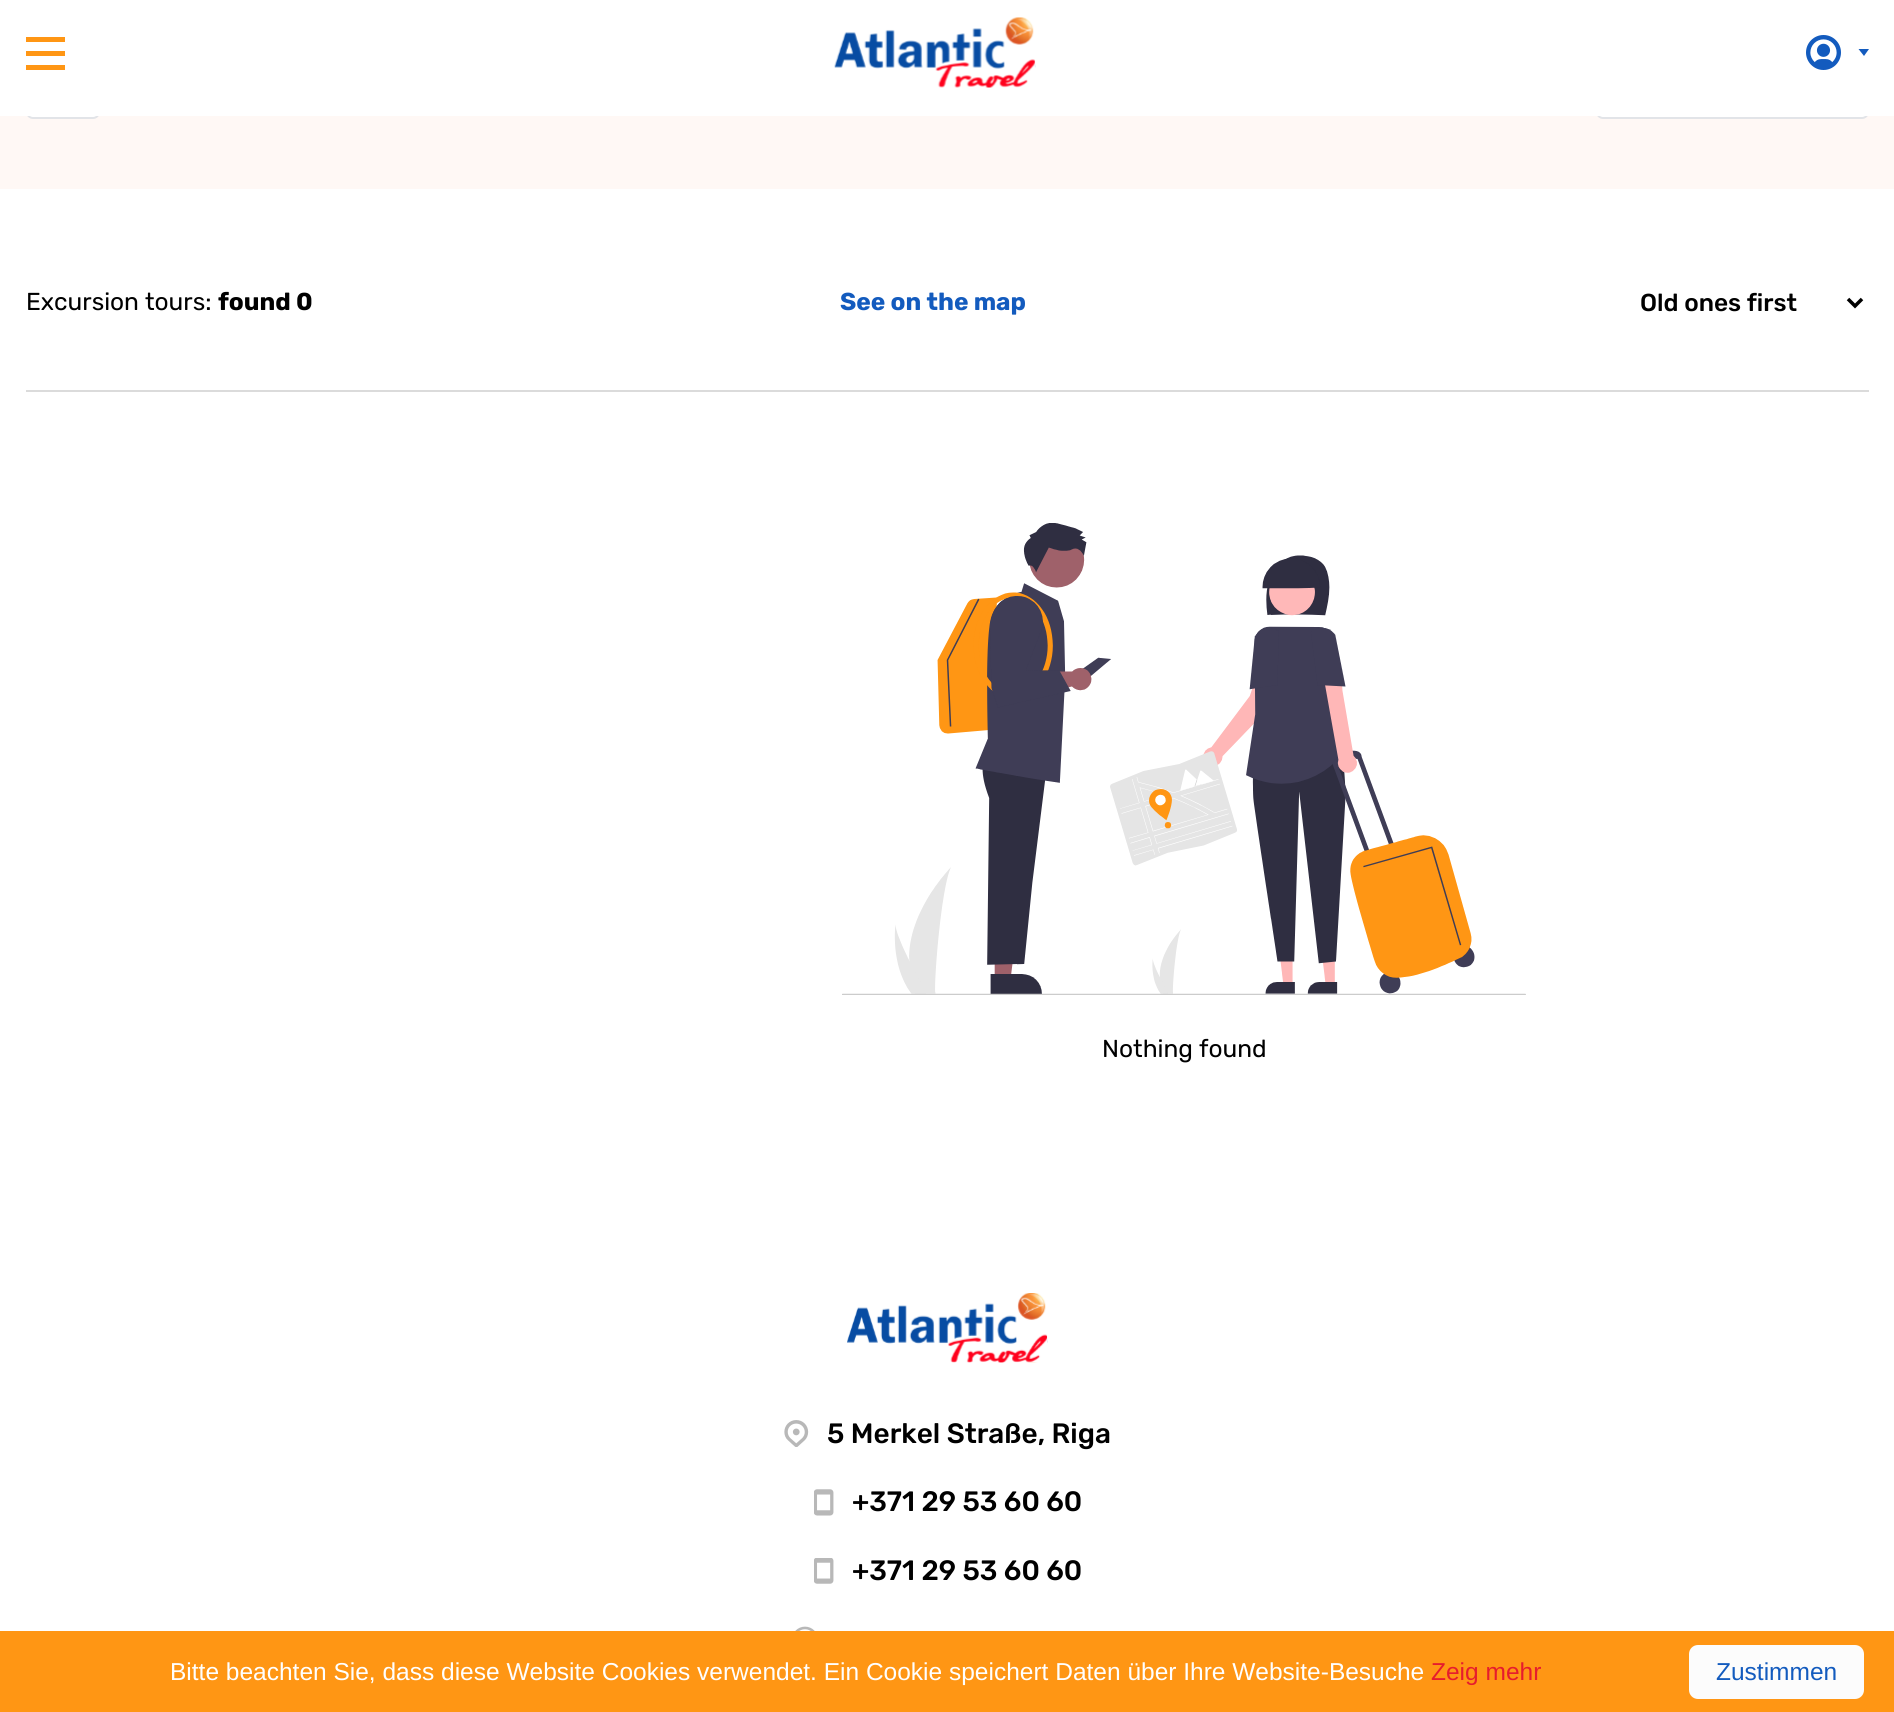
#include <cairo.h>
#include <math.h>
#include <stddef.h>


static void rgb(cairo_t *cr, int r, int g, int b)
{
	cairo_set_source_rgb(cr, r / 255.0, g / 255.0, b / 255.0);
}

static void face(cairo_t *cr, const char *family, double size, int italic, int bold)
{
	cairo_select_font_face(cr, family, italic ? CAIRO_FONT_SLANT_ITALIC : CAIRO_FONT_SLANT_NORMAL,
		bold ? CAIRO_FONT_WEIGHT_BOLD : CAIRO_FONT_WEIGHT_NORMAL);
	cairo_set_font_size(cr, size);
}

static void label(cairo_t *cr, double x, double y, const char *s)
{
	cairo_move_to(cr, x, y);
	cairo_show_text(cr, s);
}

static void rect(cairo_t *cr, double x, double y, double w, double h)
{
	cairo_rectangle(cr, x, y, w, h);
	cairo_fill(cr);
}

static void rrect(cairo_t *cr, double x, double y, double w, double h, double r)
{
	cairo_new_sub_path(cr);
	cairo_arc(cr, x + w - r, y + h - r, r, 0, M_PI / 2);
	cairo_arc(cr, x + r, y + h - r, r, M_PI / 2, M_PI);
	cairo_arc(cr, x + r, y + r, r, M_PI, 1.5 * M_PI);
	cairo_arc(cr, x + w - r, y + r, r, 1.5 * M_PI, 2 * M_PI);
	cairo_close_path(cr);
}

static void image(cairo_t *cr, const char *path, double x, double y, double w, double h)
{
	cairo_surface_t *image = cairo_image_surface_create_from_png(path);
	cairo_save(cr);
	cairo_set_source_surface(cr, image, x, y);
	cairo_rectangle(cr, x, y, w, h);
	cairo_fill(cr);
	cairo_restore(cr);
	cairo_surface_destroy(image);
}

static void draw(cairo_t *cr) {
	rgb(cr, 255, 248, 245);
	cairo_paint(cr);
	rgb(cr, 255, 255, 255);
	rrect(cr, 27, 50, 72, 68, 6);
	cairo_fill_preserve(cr);
	rgb(cr, 226, 228, 232);
	cairo_stroke(cr);
	rgb(cr, 255, 255, 255);
	rrect(cr, 1597, 50, 271, 68, 6);
	cairo_fill_preserve(cr);
	rgb(cr, 226, 228, 232);
	cairo_stroke(cr);
	rgb(cr, 255, 255, 255);
	rect(cr, 0, 0, 1894, 116);
	rgb(cr, 255, 150, 20);
	rect(cr, 26, 51, 39, 5);
	rect(cr, 26, 37, 39, 5);
	rect(cr, 26, 65, 39, 5);
	image(cr, "image0.png", 834, 17, 202, 71);
	image(cr, "image1.png", 1806, 35, 35, 35);
	rgb(cr, 19, 91, 190);
	cairo_new_path(cr);
	cairo_move_to(cr, 1858.5, 49);
	cairo_line_to(cr, 1869, 49);
	cairo_line_to(cr, 1864, 56);
	cairo_close_path(cr);
	cairo_fill(cr);
	rgb(cr, 255, 255, 255);
	rect(cr, 0, 189, 1894, 1442);
	rgb(cr, 219, 219, 219);
	rect(cr, 26, 390, 1843, 2);
	face(cr, "Rubik", 24.5, 0, 0);
	rgb(cr, 0, 0, 0);
	label(cr, 26, 310, "Excursion tours:");
	face(cr, "Rubik", 24.5, 0, 1);
	label(cr, 218, 310, "found 0");
	rgb(cr, 19, 91, 190);
	label(cr, 840, 310, "See on the map");
	cairo_new_path(cr);
	cairo_move_to(cr, 1848, 299);
	cairo_line_to(cr, 1855, 306);
	cairo_line_to(cr, 1862, 299);
	rgb(cr, 0, 0, 0);
	cairo_set_line_width(cr, 3.5);
	cairo_stroke(cr);
	face(cr, "Rubik Medium", 24.5, 0, 0);
	label(cr, 1640, 311, "Old ones first");
	image(cr, "image2.png", 842, 523, 684, 472);
	face(cr, "Rubik", 24.5, 0, 0);
	label(cr, 1102, 1057, "Nothing found");
	image(cr, "image3.png", 847, 1293, 201, 70);
	image(cr, "image4.png", 784, 1420, 25, 27);
	face(cr, "Rubik Medium", 28, 0, 0);
	label(cr, 827, 1443, "5 Merkel Straße, Riga");
	image(cr, "image5.png", 814, 1489, 20, 27);
	label(cr, 852, 1511, "+371 29 53 60 60");
	image(cr, "image6.png", 814, 1558, 20, 26);
	label(cr, 852, 1580, "+371 29 53 60 60");
	image(cr, "image7.png", 795, 1626, 20, 5);
	rgb(cr, 255, 150, 20);
	rect(cr, 0, 1631, 1894, 81);
	face(cr, "Liberation Sans", 24.5, 0, 0);
	rgb(cr, 255, 255, 255);
	label(cr, 170, 1680, "Bitte beachten Sie, dass diese Website Cookies verwendet. Ein Cookie speichert Daten über Ihre Website-Besuche");
	rgb(cr, 230, 28, 45);
	label(cr, 1431, 1680, "Zeig mehr");
	rgb(cr, 252, 252, 252);
	rrect(cr, 1689, 1645, 175, 54, 9);
	cairo_fill(cr);
	rgb(cr, 19, 91, 190);
	label(cr, 1716, 1680, "Zustimmen");
}

int main(void) {
	cairo_surface_t *surface = cairo_image_surface_create(CAIRO_FORMAT_RGB24, 1894, 1712);
	cairo_t *cr = cairo_create(surface);
	cairo_font_options_t *options = cairo_font_options_create();
	cairo_font_options_set_hint_metrics(options, CAIRO_HINT_METRICS_OFF);
	cairo_font_options_set_hint_style(options, CAIRO_HINT_STYLE_NONE);
	cairo_set_font_options(cr, options);
	cairo_set_miter_limit(cr, 4);
	draw(cr);
	cairo_surface_write_to_png(surface, "render.png");
	cairo_font_options_destroy(options);
	cairo_destroy(cr);
	cairo_surface_destroy(surface);
	return 0;
}
